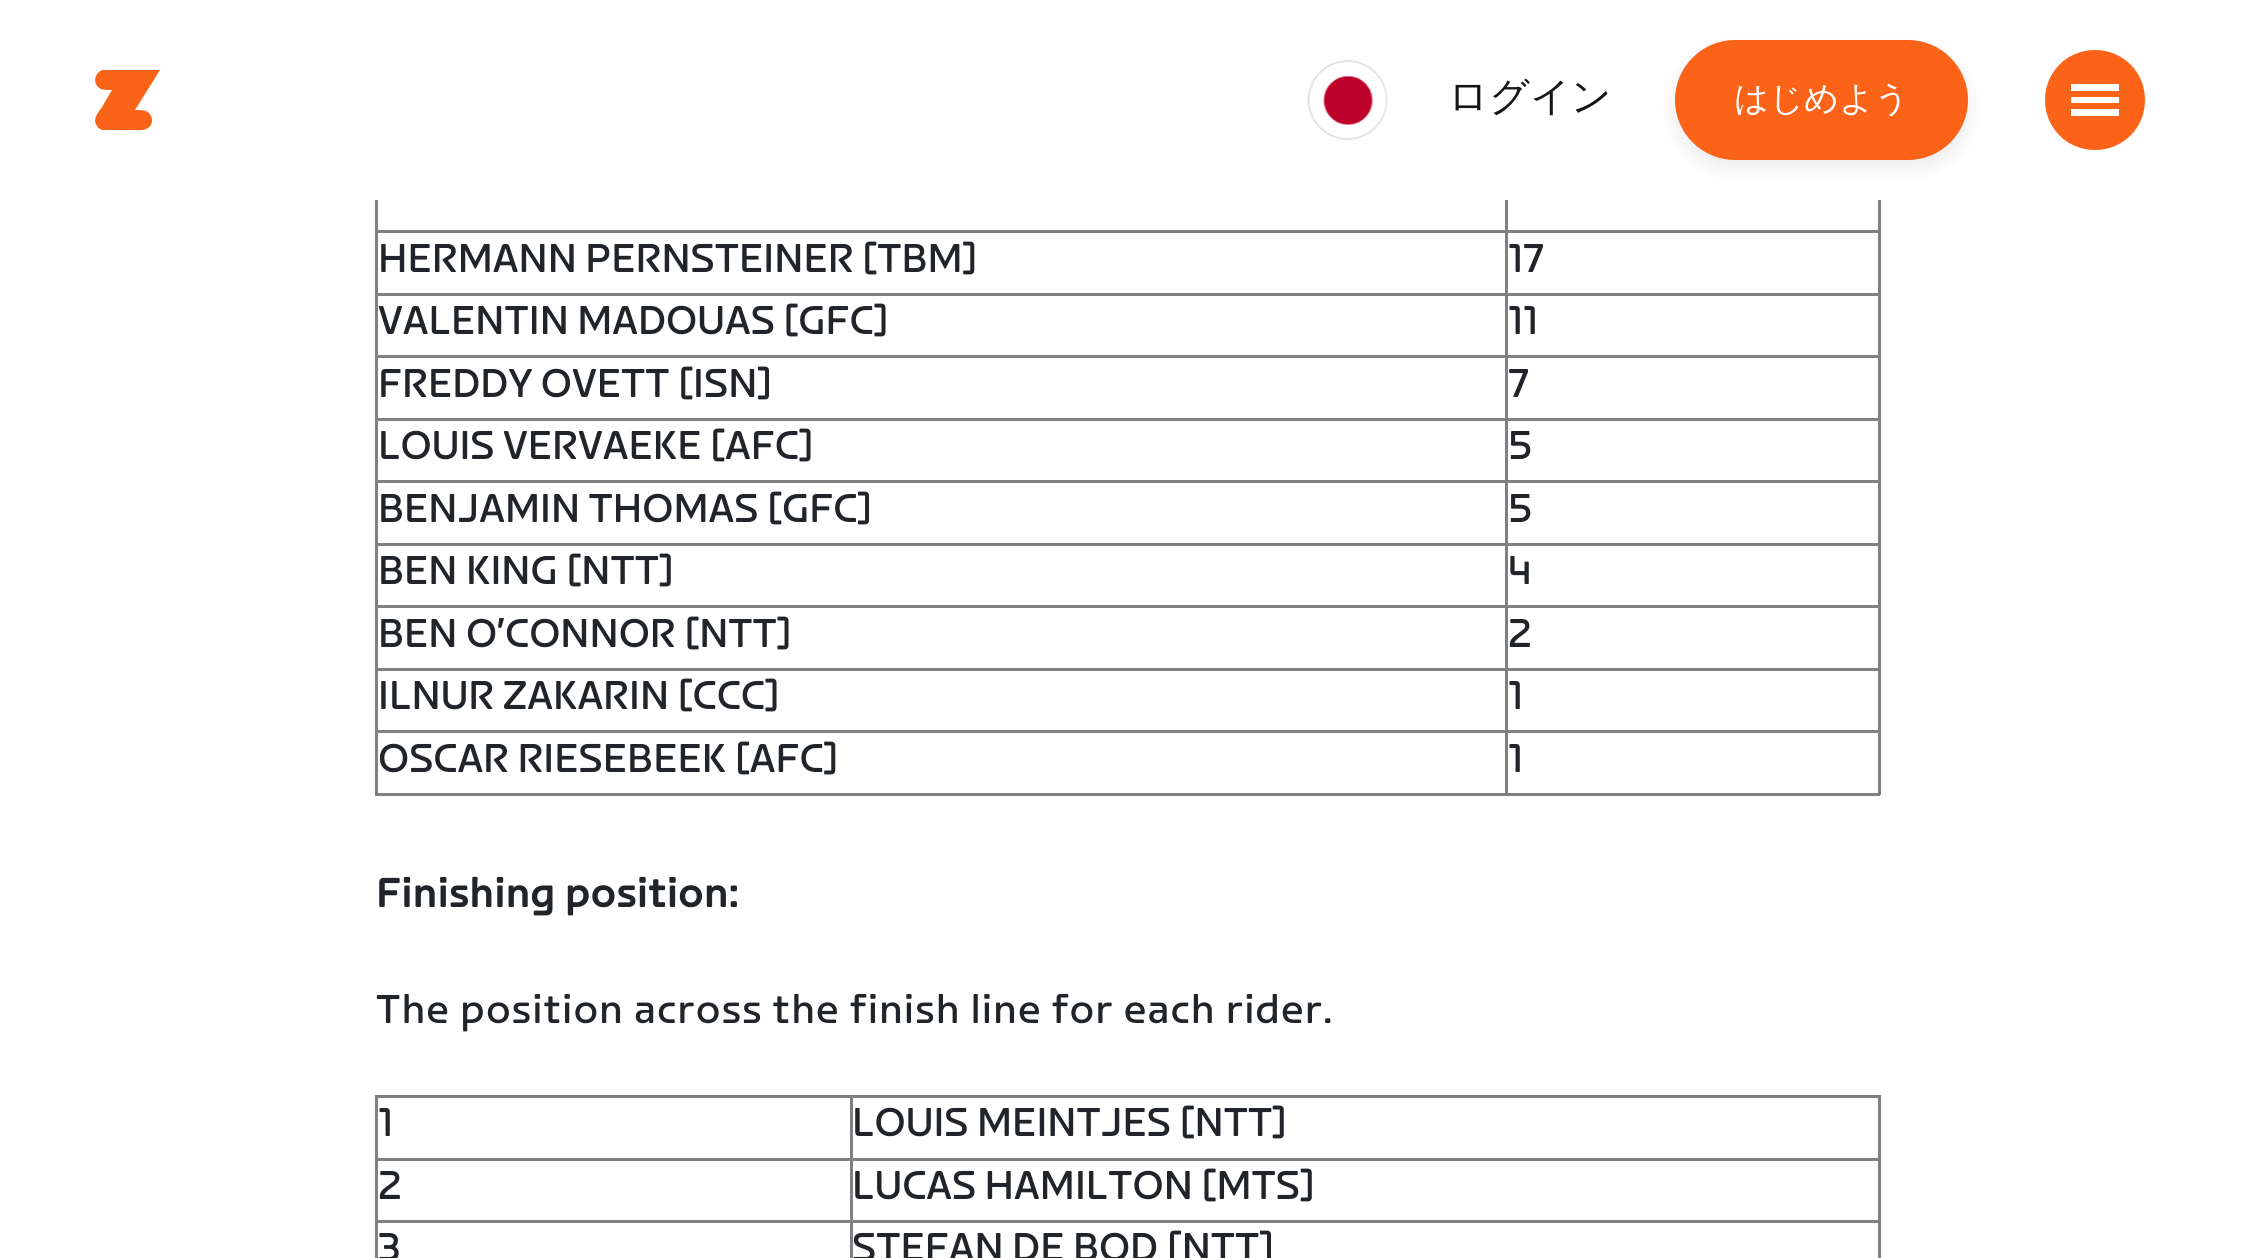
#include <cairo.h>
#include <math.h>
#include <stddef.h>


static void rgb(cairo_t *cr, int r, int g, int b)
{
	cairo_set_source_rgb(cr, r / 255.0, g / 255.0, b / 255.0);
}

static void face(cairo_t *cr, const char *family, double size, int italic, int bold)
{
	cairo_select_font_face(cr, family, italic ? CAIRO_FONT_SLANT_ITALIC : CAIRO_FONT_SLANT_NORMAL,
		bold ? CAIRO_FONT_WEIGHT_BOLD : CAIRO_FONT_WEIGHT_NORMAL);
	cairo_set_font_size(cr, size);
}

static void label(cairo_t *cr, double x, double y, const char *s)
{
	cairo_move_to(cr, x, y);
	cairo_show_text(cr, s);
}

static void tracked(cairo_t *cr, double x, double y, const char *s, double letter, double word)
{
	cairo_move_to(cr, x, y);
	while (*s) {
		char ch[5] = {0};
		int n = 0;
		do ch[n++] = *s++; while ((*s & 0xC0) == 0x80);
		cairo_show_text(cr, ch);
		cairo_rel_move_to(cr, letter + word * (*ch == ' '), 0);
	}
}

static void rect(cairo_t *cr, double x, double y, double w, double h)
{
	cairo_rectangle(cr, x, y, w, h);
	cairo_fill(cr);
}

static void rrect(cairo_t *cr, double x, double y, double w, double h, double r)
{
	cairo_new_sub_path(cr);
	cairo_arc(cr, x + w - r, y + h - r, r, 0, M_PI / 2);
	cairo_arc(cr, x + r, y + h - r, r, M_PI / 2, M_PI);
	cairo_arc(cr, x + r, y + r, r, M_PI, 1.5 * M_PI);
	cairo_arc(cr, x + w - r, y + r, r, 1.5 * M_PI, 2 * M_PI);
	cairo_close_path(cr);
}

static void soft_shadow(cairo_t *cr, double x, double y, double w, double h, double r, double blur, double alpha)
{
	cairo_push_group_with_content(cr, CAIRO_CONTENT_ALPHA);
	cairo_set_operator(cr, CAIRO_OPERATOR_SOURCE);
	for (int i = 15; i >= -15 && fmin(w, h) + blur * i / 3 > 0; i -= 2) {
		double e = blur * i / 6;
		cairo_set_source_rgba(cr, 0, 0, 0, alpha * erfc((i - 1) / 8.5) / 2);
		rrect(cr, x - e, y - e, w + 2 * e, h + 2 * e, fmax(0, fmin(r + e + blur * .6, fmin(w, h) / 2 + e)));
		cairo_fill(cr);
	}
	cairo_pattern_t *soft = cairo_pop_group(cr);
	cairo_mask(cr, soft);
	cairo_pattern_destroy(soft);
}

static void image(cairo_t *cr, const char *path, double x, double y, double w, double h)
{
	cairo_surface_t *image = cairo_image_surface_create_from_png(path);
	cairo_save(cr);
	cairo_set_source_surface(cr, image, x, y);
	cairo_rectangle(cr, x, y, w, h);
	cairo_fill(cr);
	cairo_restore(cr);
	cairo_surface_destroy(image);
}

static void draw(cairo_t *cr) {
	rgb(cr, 255, 255, 255);
	cairo_paint(cr);
	rgb(cr, 251, 100, 24);
	cairo_new_path(cr);
	cairo_move_to(cr, 112, 90);
	cairo_curve_to(cr, 108, 90, 104, 90, 101, 89);
	cairo_curve_to(cr, 92, 85, 94, 72, 103, 70);
	cairo_line_to(cr, 160, 70);
	cairo_line_to(cr, 135, 110);
	cairo_curve_to(cr, 139, 110, 143, 110, 146, 111);
	cairo_curve_to(cr, 154, 115, 154, 126, 146, 129);
	cairo_curve_to(cr, 142, 131, 137, 130, 133, 130);
	cairo_line_to(cr, 102, 130);
	cairo_curve_to(cr, 100, 129, 98, 128, 97, 126);
	cairo_curve_to(cr, 92, 119, 98, 113, 102, 107);
	cairo_close_path(cr);
	cairo_fill(cr);
	image(cr, "image0.png", 1307, 60, 81, 80);
	face(cr, "WenQuanYi Zen Hei Medium", 40, 0, 0);
	rgb(cr, 20, 21, 24);
	label(cr, 1448, 110, "ログイン");
	rgb(cr, 0, 0, 0);
	soft_shadow(cr, 1675, 50, 293, 118, 59, 10, 0.08);
	rgb(cr, 251, 100, 24);
	rrect(cr, 1675, 40, 293, 120, 60);
	cairo_fill(cr);
	face(cr, "WenQuanYi Zen Hei Medium", 34.25, 0, 0);
	rgb(cr, 255, 255, 255);
	label(cr, 1734, 110, "はじめよう");
	rgb(cr, 251, 100, 24);
	cairo_new_path(cr);
	cairo_move_to(cr, 2045, 100);
	cairo_curve_to(cr, 2045, 72, 2067, 50, 2095, 50);
	cairo_curve_to(cr, 2123, 50, 2145, 72, 2145, 100);
	cairo_curve_to(cr, 2145, 128, 2123, 150, 2095, 150);
	cairo_curve_to(cr, 2067, 150, 2045, 128, 2045, 100);
	cairo_close_path(cr);
	cairo_fill(cr);
	rgb(cr, 255, 255, 255);
	rect(cr, 2071, 84, 48, 7);
	rect(cr, 2071, 97, 48, 6);
	rect(cr, 2071, 109, 48, 7);
	rgb(cr, 128, 128, 128);
	rect(cr, 1878, 200, 3, 595);
	rect(cr, 375, 793, 1505, 3);
	rect(cr, 375, 200, 3, 595);
	rect(cr, 1505, 230, 375, 3);
	rect(cr, 1505, 293, 375, 3);
	rect(cr, 1505, 355, 375, 3);
	rect(cr, 1505, 418, 375, 3);
	rect(cr, 1505, 480, 375, 3);
	rect(cr, 1505, 543, 375, 3);
	rect(cr, 1505, 605, 375, 3);
	rect(cr, 1505, 668, 375, 3);
	rect(cr, 1505, 730, 375, 3);
	rect(cr, 1505, 730, 3, 65);
	rect(cr, 375, 730, 1133, 3);
	rect(cr, 1505, 668, 3, 65);
	rect(cr, 375, 668, 1133, 3);
	rect(cr, 1505, 605, 3, 65);
	rect(cr, 375, 605, 1133, 3);
	rect(cr, 1505, 543, 3, 65);
	rect(cr, 375, 543, 1133, 3);
	rect(cr, 1505, 480, 3, 65);
	rect(cr, 375, 480, 1133, 3);
	rect(cr, 1505, 418, 3, 65);
	rect(cr, 375, 418, 1133, 3);
	rect(cr, 1505, 355, 3, 65);
	rect(cr, 375, 355, 1133, 3);
	rect(cr, 1505, 293, 3, 65);
	rect(cr, 375, 293, 1133, 3);
	rect(cr, 1505, 230, 3, 65);
	rect(cr, 375, 230, 1133, 3);
	rect(cr, 1505, 200, 3, 33);
	face(cr, "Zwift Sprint", 40, 0, 0);
	rgb(cr, 33, 37, 41);
	label(cr, 378, 272, "HERMANN PERNSTEINER [TBM]");
	label(cr, 1508, 272, "17");
	label(cr, 378, 334, "VALENTIN MADOUAS [GFC]");
	label(cr, 1508, 334, "11");
	label(cr, 378, 397, "FREDDY OVETT [ISN]");
	label(cr, 1508, 397, "7");
	label(cr, 378, 459, "LOUIS VERVAEKE [AFC]");
	label(cr, 1508, 459, "5");
	label(cr, 378, 522, "BENJAMIN THOMAS [GFC]");
	label(cr, 1508, 522, "5");
	label(cr, 378, 584, "BEN KING [NTT]");
	label(cr, 1508, 584, "4");
	label(cr, 378, 647, "BEN O’CONNOR [NTT]");
	label(cr, 1508, 647, "2");
	label(cr, 378, 709, "ILNUR ZAKARIN [CCC]");
	label(cr, 1508, 709, "1");
	label(cr, 378, 772, "OSCAR RIESEBEEK [AFC]");
	label(cr, 1508, 772, "1");
	face(cr, "Zwift Sprint", 40, 0, 1);
	tracked(cr, 376, 907, "Finishing position:", 1.5, 0);
	face(cr, "Zwift Sprint", 40, 0, 0);
	tracked(cr, 376, 1023, "The position across the finish line for each rider.", 1.5, 0);
	rgb(cr, 128, 128, 128);
	rect(cr, 375, 1095, 1505, 3);
	rect(cr, 1878, 1095, 3, 163);
	rect(cr, 375, 1095, 3, 163);
	rgb(cr, 33, 37, 41);
	label(cr, 378, 1136, "1");
	rgb(cr, 128, 128, 128);
	rect(cr, 850, 1158, 1030, 3);
	rect(cr, 850, 1220, 1030, 3);
	rect(cr, 850, 1220, 3, 38);
	rect(cr, 375, 1220, 478, 3);
	rect(cr, 850, 1158, 3, 65);
	rect(cr, 375, 1158, 478, 3);
	rect(cr, 850, 1095, 3, 65);
	rgb(cr, 33, 37, 41);
	label(cr, 852, 1136, "LOUIS MEINTJES [NTT]");
	label(cr, 378, 1199, "2");
	label(cr, 852, 1199, "LUCAS HAMILTON [MTS]");
	label(cr, 378, 1261, "3");
	label(cr, 852, 1261, "STEFAN DE BOD [NTT]");
}

int main(void) {
	cairo_surface_t *surface = cairo_image_surface_create(CAIRO_FORMAT_RGB24, 2255, 1258);
	cairo_t *cr = cairo_create(surface);
	cairo_font_options_t *options = cairo_font_options_create();
	cairo_font_options_set_hint_metrics(options, CAIRO_HINT_METRICS_OFF);
	cairo_font_options_set_hint_style(options, CAIRO_HINT_STYLE_NONE);
	cairo_set_font_options(cr, options);
	cairo_set_miter_limit(cr, 4);
	draw(cr);
	cairo_surface_write_to_png(surface, "render.png");
	cairo_font_options_destroy(options);
	cairo_destroy(cr);
	cairo_surface_destroy(surface);
	return 0;
}
